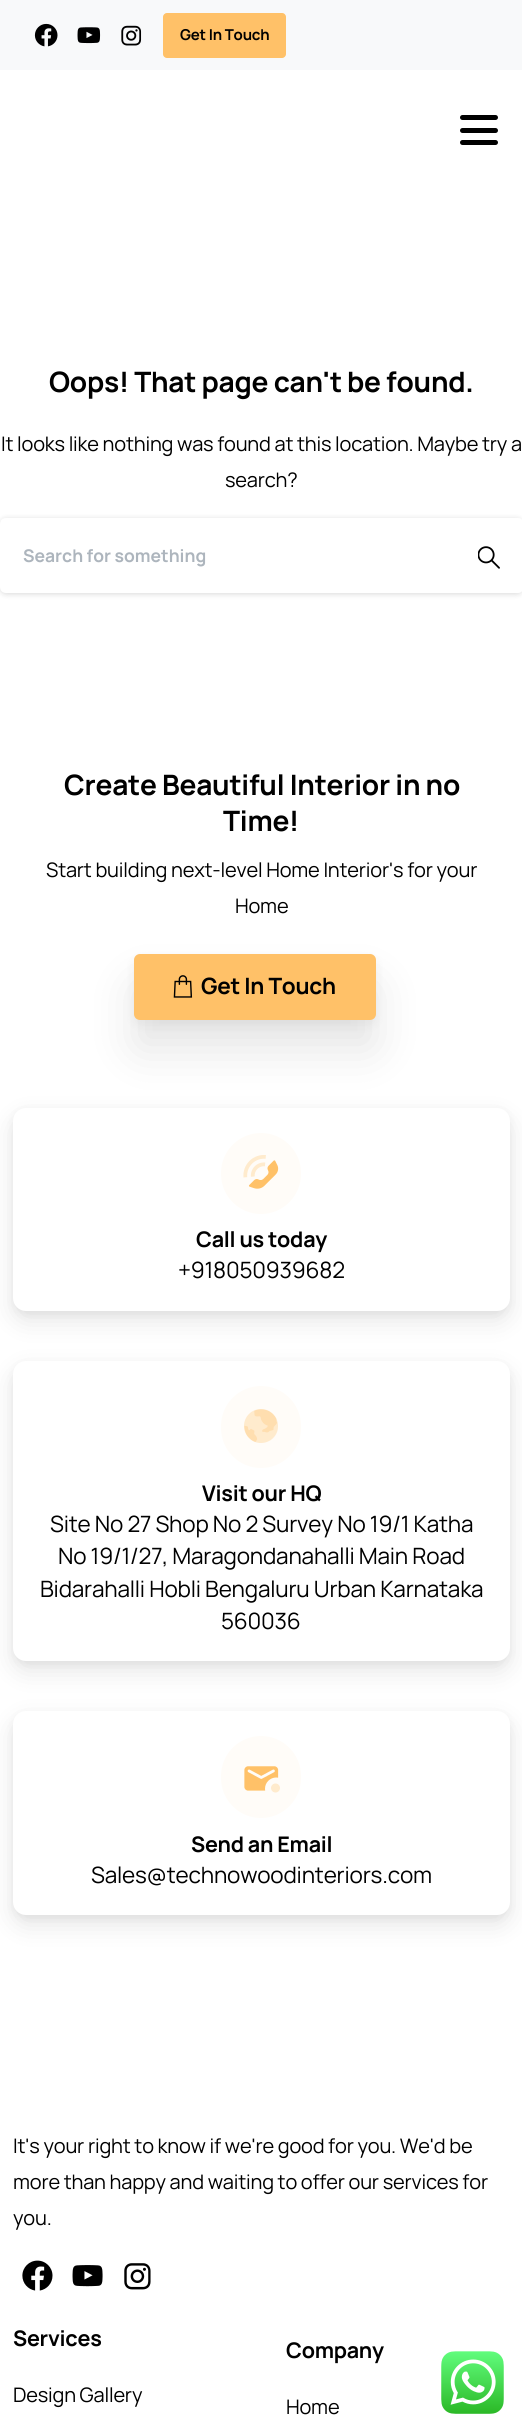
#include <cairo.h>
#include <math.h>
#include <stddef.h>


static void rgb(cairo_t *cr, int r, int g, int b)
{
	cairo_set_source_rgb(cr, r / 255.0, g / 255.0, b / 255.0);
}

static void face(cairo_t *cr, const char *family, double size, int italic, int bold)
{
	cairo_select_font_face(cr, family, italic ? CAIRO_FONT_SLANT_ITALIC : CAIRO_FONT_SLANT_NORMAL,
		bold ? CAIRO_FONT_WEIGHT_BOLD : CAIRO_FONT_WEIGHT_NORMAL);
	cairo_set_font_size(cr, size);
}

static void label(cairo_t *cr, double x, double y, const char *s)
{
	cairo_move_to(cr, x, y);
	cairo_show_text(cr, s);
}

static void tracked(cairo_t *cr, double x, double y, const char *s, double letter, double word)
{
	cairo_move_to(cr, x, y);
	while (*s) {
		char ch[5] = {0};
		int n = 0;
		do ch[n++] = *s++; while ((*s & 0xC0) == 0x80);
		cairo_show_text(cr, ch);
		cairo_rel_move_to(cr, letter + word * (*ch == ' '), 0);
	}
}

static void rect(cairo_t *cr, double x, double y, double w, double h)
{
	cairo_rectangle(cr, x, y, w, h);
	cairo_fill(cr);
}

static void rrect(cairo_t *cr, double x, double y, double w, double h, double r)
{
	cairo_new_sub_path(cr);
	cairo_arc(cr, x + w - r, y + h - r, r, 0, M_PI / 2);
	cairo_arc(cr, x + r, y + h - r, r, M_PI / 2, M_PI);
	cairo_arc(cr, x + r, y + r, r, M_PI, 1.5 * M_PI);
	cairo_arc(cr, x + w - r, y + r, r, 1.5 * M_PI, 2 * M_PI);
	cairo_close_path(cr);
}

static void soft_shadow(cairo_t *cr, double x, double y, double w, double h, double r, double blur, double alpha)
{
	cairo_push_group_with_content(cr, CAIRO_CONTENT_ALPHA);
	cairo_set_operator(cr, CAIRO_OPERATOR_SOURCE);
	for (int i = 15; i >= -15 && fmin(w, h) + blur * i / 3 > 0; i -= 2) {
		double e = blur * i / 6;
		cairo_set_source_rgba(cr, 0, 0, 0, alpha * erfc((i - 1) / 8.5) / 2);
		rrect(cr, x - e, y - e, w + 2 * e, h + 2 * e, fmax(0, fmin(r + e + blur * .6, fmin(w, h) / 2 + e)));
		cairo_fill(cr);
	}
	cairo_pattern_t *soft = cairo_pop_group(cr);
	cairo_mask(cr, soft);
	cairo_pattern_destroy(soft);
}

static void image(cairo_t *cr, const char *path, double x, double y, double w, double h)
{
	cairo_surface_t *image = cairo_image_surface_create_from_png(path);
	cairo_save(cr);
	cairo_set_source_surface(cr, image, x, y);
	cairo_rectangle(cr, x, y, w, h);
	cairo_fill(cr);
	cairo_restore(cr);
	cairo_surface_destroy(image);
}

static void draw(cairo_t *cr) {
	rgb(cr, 255, 255, 255);
	cairo_paint(cr);
	rgb(cr, 248, 249, 250);
	rect(cr, 0, 0, 522, 70);
	image(cr, "image0.png", 34, 23, 24, 24);
	image(cr, "image1.png", 77, 27, 24, 17);
	image(cr, "image2.png", 121, 25, 21, 21);
	rgb(cr, 255, 193, 104);
	rrect(cr, 163, 13, 123, 45, 4);
	cairo_fill(cr);
	face(cr, "Manrope", 15, 0, 1);
	rgb(cr, 0, 0, 0);
	tracked(cr, 180, 40, "Get In Touch", -0.2, 0);
	rrect(cr, 460, 115, 38, 5, 2.5);
	cairo_fill(cr);
	rrect(cr, 460, 128, 38, 5, 2.5);
	cairo_fill(cr);
	rrect(cr, 460, 140, 38, 5, 2.5);
	cairo_fill(cr);
	face(cr, "Manrope", 28.1, 0, 1);
	tracked(cr, 49, 392, "Oops! That page can't", -0.25, 0);
	tracked(cr, 347, 392, "be found.", -0.25, 0);
	face(cr, "Manrope", 20, 0, 0);
	tracked(cr, 1, 451, "It looks like nothing was found at this location. Maybe try a", -0.2, 0);
	tracked(cr, 225, 487, "search?", -0.2, 0);
	rgb(cr, 0, 0, 0);
	soft_shadow(cr, 0, 519, 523, 75, 6, 3, 0.15);
	rgb(cr, 255, 255, 255);
	cairo_new_path(cr);
	cairo_move_to(cr, 6, 518);
	cairo_line_to(cr, 455, 518);
	cairo_line_to(cr, 455, 593);
	cairo_line_to(cr, 6, 593);
	cairo_curve_to(cr, 2.5, 593, 0, 590.5, 0, 587);
	cairo_line_to(cr, 0, 524);
	cairo_curve_to(cr, 0, 520.5, 2.5, 518, 6, 518);
	cairo_close_path(cr);
	cairo_fill(cr);
	face(cr, "Manrope", 17.5, 0, 1);
	rgb(cr, 173, 181, 189);
	label(cr, 23, 562, "Search for something");
	rgb(cr, 255, 255, 255);
	cairo_new_path(cr);
	cairo_move_to(cr, 455, 518);
	cairo_line_to(cr, 518, 518);
	cairo_curve_to(cr, 521, 518, 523, 520, 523, 523);
	cairo_line_to(cr, 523, 588);
	cairo_curve_to(cr, 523, 591, 521, 593, 518, 593);
	cairo_line_to(cr, 455, 593);
	cairo_close_path(cr);
	cairo_fill(cr);
	image(cr, "image3.png", 478, 546, 22, 23);
	face(cr, "Manrope", 28.1, 0, 1);
	rgb(cr, 0, 0, 0);
	tracked(cr, 64, 795, "Create Beautiful Interior in no", -0.25, 0);
	tracked(cr, 223, 831, "Time!", -0.25, 0);
	face(cr, "Manrope", 20, 0, 0);
	tracked(cr, 46, 877, "Start building next-level Home Interior's for your", -0.2, 0);
	tracked(cr, 235, 913, "Home", -0.2, 0);
	rgb(cr, 0, 0, 0);
	soft_shadow(cr, 13, 1118, 497, 203, 13, 12, 0.1);
	soft_shadow(cr, 13, 1110, 497, 204, 13, 4, 0.05);
	rgb(cr, 255, 255, 255);
	rrect(cr, 13, 1108, 497, 203, 13);
	cairo_fill(cr);
	rgb(cr, 0, 0, 0);
	soft_shadow(cr, 134, 984, 242, 66, 6, 22, 0.1);
	soft_shadow(cr, 134, 959, 242, 66, 6, 5, 0.05);
	rgb(cr, 255, 193, 104);
	rrect(cr, 134, 954, 242, 66, 6);
	cairo_fill(cr);
	image(cr, "image4.png", 173, 975, 20, 23);
	face(cr, "Manrope", 22.5, 0, 1);
	rgb(cr, 0, 0, 0);
	tracked(cr, 201, 994, "Get In Touch", -0.25, 0);
	rgb(cr, 255, 252, 248);
	rrect(cr, 221, 1133, 80, 81, 40);
	cairo_fill(cr);
	image(cr, "image5.png", 243, 1155, 36, 34);
	face(cr, "Manrope", 21.5, 0, 1);
	rgb(cr, 0, 0, 0);
	tracked(cr, 196, 1247, "Call us today", -0.25, 0);
	face(cr, "Manrope", 22.5, 0, 0);
	tracked(cr, 178, 1278, "+918050939682", -0.2, 0);
	rgb(cr, 0, 0, 0);
	soft_shadow(cr, 13, 1371, 497, 300, 13, 12, 0.1);
	soft_shadow(cr, 13, 1364, 497, 300, 13, 4, 0.05);
	rgb(cr, 255, 255, 255);
	rrect(cr, 13, 1361, 497, 300, 13);
	cairo_fill(cr);
	rgb(cr, 255, 252, 248);
	rrect(cr, 221, 1386, 80, 82, 40);
	cairo_fill(cr);
	image(cr, "image6.png", 244, 1409, 34, 34);
	face(cr, "Manrope", 21.5, 0, 1);
	rgb(cr, 0, 0, 0);
	tracked(cr, 202, 1501, "Visit our HQ", -0.25, 0);
	face(cr, "Manrope", 22.5, 0, 0);
	tracked(cr, 50, 1532, "Site No 27 Shop No 2 Survey No 19/1 Katha", -0.2, 0);
	tracked(cr, 58, 1564, "No 19/1/27, Maragondanahalli Main Road", -0.2, 0);
	tracked(cr, 40, 1597, "Bidarahalli Hobli Bengaluru Urban Karnataka", -0.2, 0);
	tracked(cr, 221, 1629, "560036", -0.2, 0);
	rgb(cr, 0, 0, 0);
	soft_shadow(cr, 13, 1721, 497, 204, 13, 12, 0.1);
	soft_shadow(cr, 13, 1714, 497, 204, 13, 4, 0.05);
	rgb(cr, 255, 255, 255);
	rrect(cr, 13, 1711, 497, 204, 13);
	cairo_fill(cr);
	rgb(cr, 255, 252, 248);
	rrect(cr, 221, 1736, 80, 82, 40);
	cairo_fill(cr);
	image(cr, "image7.png", 244, 1766, 36, 27);
	face(cr, "Manrope", 21.5, 0, 1);
	rgb(cr, 0, 0, 0);
	tracked(cr, 191, 1852, "Send an Email", -0.25, 0);
	face(cr, "Manrope", 22.5, 0, 0);
	tracked(cr, 91, 1883, "Sales@technowoodinteriors.com", -0.2, 0);
	face(cr, "Manrope", 20, 0, 0);
	tracked(cr, 13, 2153, "It's your right to know if we're good for you. We'd be", -0.2, 0);
	tracked(cr, 13, 2189, "more than happy and waiting to offer our services for", -0.2, 0);
	tracked(cr, 13, 2225, "you.", -0.2, 0);
	image(cr, "image8.png", 22, 2260, 31, 31);
	image(cr, "image9.png", 72, 2265, 31, 22);
	image(cr, "image10.png", 124, 2263, 27, 27);
	face(cr, "Manrope", 21.5, 0, 1);
	tracked(cr, 13, 2346, "Services", -0.25, 0);
	face(cr, "Manrope", 20, 0, 0);
	tracked(cr, 13, 2402, "Design Gallery", -0.2, 0);
	face(cr, "Manrope", 21.5, 0, 1);
	tracked(cr, 286, 2358, "Company", -0.25, 0);
	face(cr, "Manrope", 20, 0, 0);
	tracked(cr, 286, 2414, "Home", -0.2, 0);
	image(cr, "image11.png", 441, 2351, 63, 63);
}

int main(void) {
	cairo_surface_t *surface = cairo_image_surface_create(CAIRO_FORMAT_RGB24, 522, 2432);
	cairo_t *cr = cairo_create(surface);
	cairo_font_options_t *options = cairo_font_options_create();
	cairo_font_options_set_hint_metrics(options, CAIRO_HINT_METRICS_OFF);
	cairo_font_options_set_hint_style(options, CAIRO_HINT_STYLE_NONE);
	cairo_set_font_options(cr, options);
	cairo_set_miter_limit(cr, 4);
	draw(cr);
	cairo_surface_write_to_png(surface, "render.png");
	cairo_font_options_destroy(options);
	cairo_destroy(cr);
	cairo_surface_destroy(surface);
	return 0;
}
